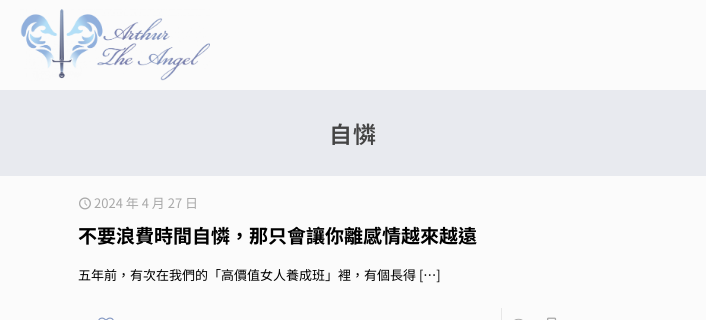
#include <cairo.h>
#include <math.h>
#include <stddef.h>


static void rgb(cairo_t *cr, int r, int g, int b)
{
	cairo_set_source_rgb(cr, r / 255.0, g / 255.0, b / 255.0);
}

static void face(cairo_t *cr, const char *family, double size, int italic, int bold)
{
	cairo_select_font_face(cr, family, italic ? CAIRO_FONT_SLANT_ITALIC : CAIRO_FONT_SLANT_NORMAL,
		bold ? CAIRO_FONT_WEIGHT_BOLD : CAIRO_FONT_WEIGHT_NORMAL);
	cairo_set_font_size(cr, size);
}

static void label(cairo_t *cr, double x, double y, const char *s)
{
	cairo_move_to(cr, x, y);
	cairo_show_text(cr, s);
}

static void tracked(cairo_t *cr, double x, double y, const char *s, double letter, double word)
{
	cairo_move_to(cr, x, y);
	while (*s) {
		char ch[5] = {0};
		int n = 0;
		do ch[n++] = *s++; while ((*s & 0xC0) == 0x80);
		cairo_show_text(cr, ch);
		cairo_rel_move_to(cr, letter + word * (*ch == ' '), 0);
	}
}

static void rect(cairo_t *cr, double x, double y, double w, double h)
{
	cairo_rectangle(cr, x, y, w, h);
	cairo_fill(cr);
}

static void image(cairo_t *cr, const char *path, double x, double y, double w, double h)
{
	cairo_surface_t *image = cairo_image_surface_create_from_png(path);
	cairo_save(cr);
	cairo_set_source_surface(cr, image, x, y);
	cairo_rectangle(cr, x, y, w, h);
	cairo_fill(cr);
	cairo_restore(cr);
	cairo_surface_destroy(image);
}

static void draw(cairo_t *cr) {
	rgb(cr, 251, 251, 251);
	cairo_paint(cr);
	image(cr, "image0.png", 20, 9, 190, 72);
	rgb(cr, 232, 234, 239);
	rect(cr, 0, 90, 706, 86);
	face(cr, "Noto Sans TC SemiBold", 23, 0, 0);
	rgb(cr, 68, 68, 68);
	tracked(cr, 329, 143, "自憐", 1, 0);
	image(cr, "image1.png", 79, 197, 12, 13);
	face(cr, "Noto Sans TC", 13, 0, 0);
	rgb(cr, 168, 168, 168);
	label(cr, 94, 208, "2024 年 4 月 27 日");
	face(cr, "Noto Sans TC", 19, 0, 1);
	rgb(cr, 0, 0, 0);
	label(cr, 78, 243, "不要浪費時間自憐，那只會讓你離感情越來越遠");
	face(cr, "Noto Sans TC", 13, 0, 0);
	label(cr, 78, 280, "五年前，有次在我們的「高價值女人養成班」裡，有個長得 […]");
	image(cr, "image2.png", 98, 317, 16, 3);
	rgb(cr, 231, 231, 231);
	rect(cr, 501, 308, 1, 12);
	image(cr, "image3.png", 514, 318, 9, 2);
	image(cr, "image4.png", 547, 317, 10, 3);
}

int main(void) {
	cairo_surface_t *surface = cairo_image_surface_create(CAIRO_FORMAT_RGB24, 706, 320);
	cairo_t *cr = cairo_create(surface);
	cairo_font_options_t *options = cairo_font_options_create();
	cairo_font_options_set_hint_metrics(options, CAIRO_HINT_METRICS_OFF);
	cairo_font_options_set_hint_style(options, CAIRO_HINT_STYLE_NONE);
	cairo_set_font_options(cr, options);
	cairo_set_miter_limit(cr, 4);
	draw(cr);
	cairo_surface_write_to_png(surface, "render.png");
	cairo_font_options_destroy(options);
	cairo_destroy(cr);
	cairo_surface_destroy(surface);
	return 0;
}
